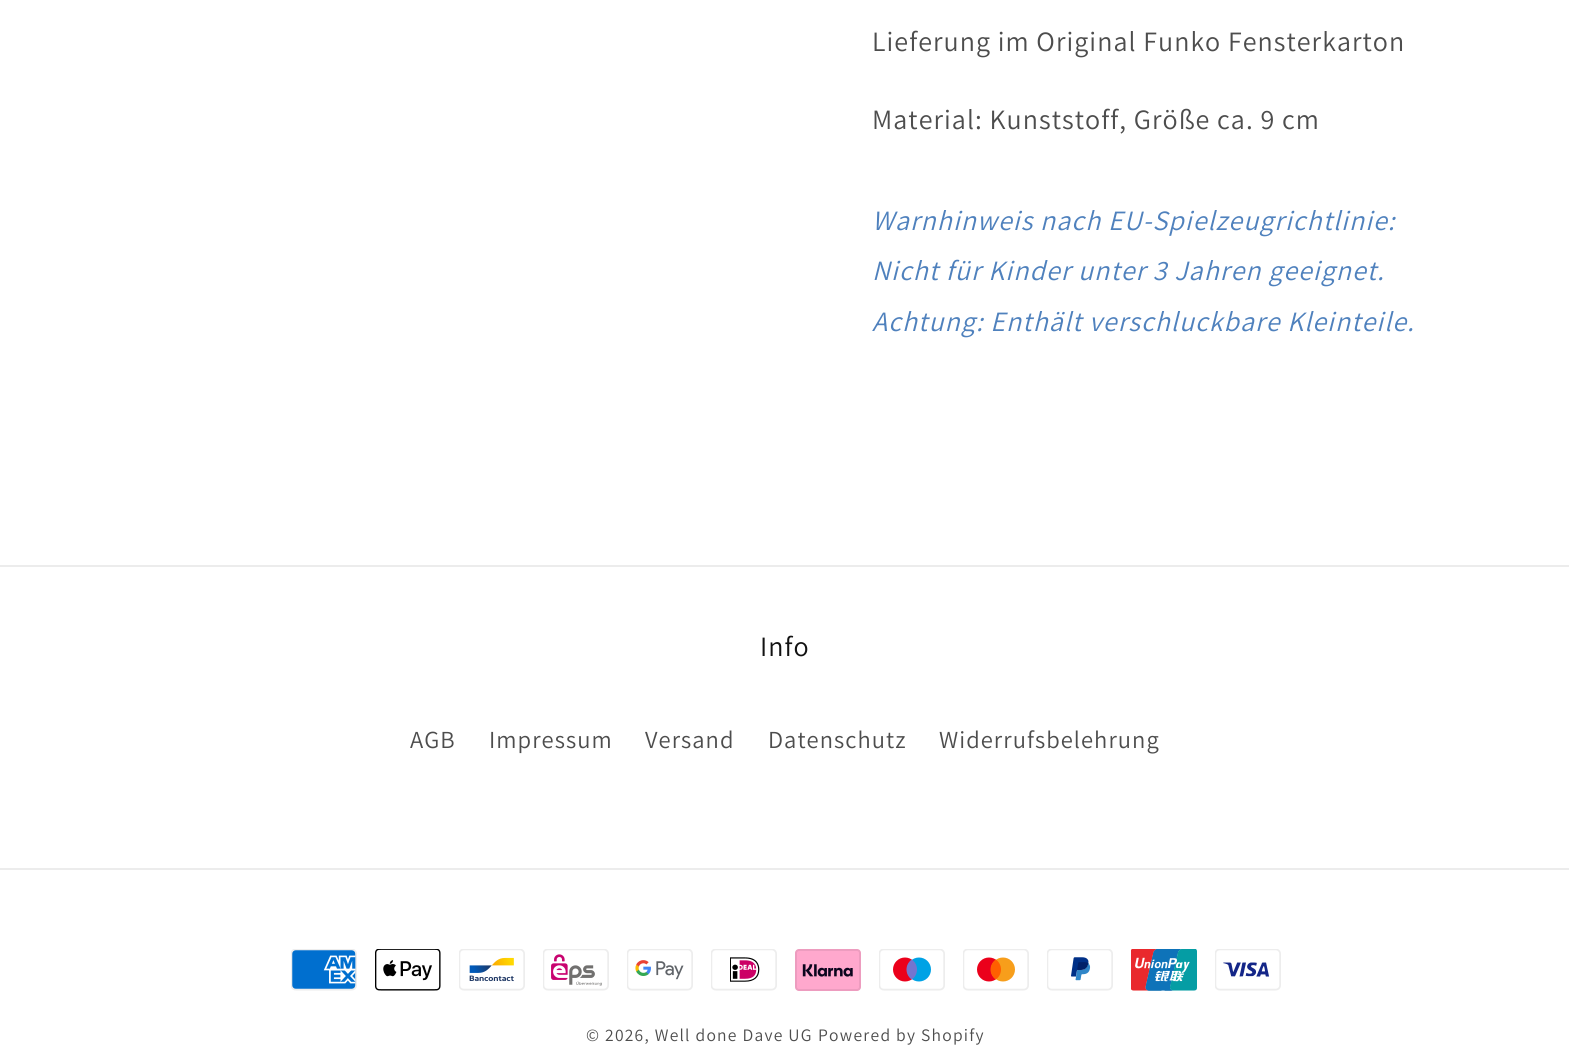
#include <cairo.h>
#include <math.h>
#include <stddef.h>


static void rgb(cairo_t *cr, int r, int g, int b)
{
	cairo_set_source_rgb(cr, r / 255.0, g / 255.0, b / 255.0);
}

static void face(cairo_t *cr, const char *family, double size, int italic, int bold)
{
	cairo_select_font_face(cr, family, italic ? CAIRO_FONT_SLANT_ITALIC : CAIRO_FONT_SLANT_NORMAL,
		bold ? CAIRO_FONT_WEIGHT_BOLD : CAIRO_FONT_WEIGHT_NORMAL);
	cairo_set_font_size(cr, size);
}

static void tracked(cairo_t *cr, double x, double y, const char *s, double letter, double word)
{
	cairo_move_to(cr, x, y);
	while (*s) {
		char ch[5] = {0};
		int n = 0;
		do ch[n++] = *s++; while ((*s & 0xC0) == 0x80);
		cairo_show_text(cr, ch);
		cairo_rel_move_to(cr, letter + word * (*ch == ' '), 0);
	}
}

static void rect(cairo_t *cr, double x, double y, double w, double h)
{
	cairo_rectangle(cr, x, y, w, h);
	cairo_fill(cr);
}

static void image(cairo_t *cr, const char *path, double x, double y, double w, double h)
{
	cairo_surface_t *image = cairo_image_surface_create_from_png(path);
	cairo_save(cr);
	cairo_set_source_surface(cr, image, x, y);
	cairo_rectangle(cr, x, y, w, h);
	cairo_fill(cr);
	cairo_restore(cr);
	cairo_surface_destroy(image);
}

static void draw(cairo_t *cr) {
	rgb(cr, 255, 255, 255);
	cairo_paint(cr);
	face(cr, "Assistant", 28, 0, 0);
	rgb(cr, 77, 77, 77);
	tracked(cr, 872, 51, "Lieferung im Original Funko Fensterkarton", 1.05, 0);
	tracked(cr, 872, 129, "Material: Kunststoff, Größe ca. 9 cm", 1.05, 0);
	face(cr, "Assistant", 28, 1, 0);
	rgb(cr, 79, 129, 189);
	tracked(cr, 872, 230, "Warnhinweis nach EU-Spielzeugrichtlinie:", 1.05, 0);
	tracked(cr, 872, 280, "Nicht für Kinder unter 3 Jahren geeignet.", 1.05, 0);
	tracked(cr, 872, 331, "Achtung: Enthält verschluckbare Kleinteile.", 1.05, 0);
	rgb(cr, 236, 236, 236);
	rect(cr, 0, 565, 1569, 2);
	face(cr, "Assistant", 28, 0, 0);
	rgb(cr, 18, 18, 18);
	tracked(cr, 760, 656, "Info", 1.05, 0);
	face(cr, "Assistant", 24.5, 0, 0);
	rgb(cr, 77, 77, 77);
	tracked(cr, 410, 748, "AGB", 1.05, 0);
	tracked(cr, 489, 748, "Impressum", 1.05, 0);
	tracked(cr, 645, 748, "Versand", 1.05, 0);
	tracked(cr, 768, 748, "Datenschutz", 1.05, 0);
	tracked(cr, 939, 748, "Widerrufsbelehrung", 1.05, 0);
	rgb(cr, 236, 236, 236);
	rect(cr, 0, 868, 1569, 2);
	image(cr, "image0.png", 291, 949, 66, 42);
	image(cr, "image1.png", 375, 949, 66, 42);
	image(cr, "image2.png", 459, 949, 66, 42);
	image(cr, "image3.png", 543, 949, 66, 42);
	image(cr, "image4.png", 627, 949, 66, 42);
	image(cr, "image5.png", 711, 949, 66, 42);
	image(cr, "image6.png", 795, 949, 66, 42);
	image(cr, "image7.png", 879, 949, 66, 42);
	image(cr, "image8.png", 963, 949, 66, 42);
	image(cr, "image9.png", 1047, 949, 66, 42);
	image(cr, "image10.png", 1131, 949, 66, 42);
	image(cr, "image11.png", 1215, 949, 66, 42);
	face(cr, "Assistant", 17.5, 0, 0);
	rgb(cr, 77, 77, 77);
	tracked(cr, 586, 1041, "© 2026, Well done Dave UG", 1.25, 0);
	tracked(cr, 818, 1041, "Powered by Shopify", 1.25, 0);
}

int main(void) {
	cairo_surface_t *surface = cairo_image_surface_create(CAIRO_FORMAT_RGB24, 1569, 1057);
	cairo_t *cr = cairo_create(surface);
	cairo_font_options_t *options = cairo_font_options_create();
	cairo_font_options_set_hint_metrics(options, CAIRO_HINT_METRICS_OFF);
	cairo_font_options_set_hint_style(options, CAIRO_HINT_STYLE_NONE);
	cairo_set_font_options(cr, options);
	cairo_set_miter_limit(cr, 4);
	draw(cr);
	cairo_surface_write_to_png(surface, "render.png");
	cairo_font_options_destroy(options);
	cairo_destroy(cr);
	cairo_surface_destroy(surface);
	return 0;
}
